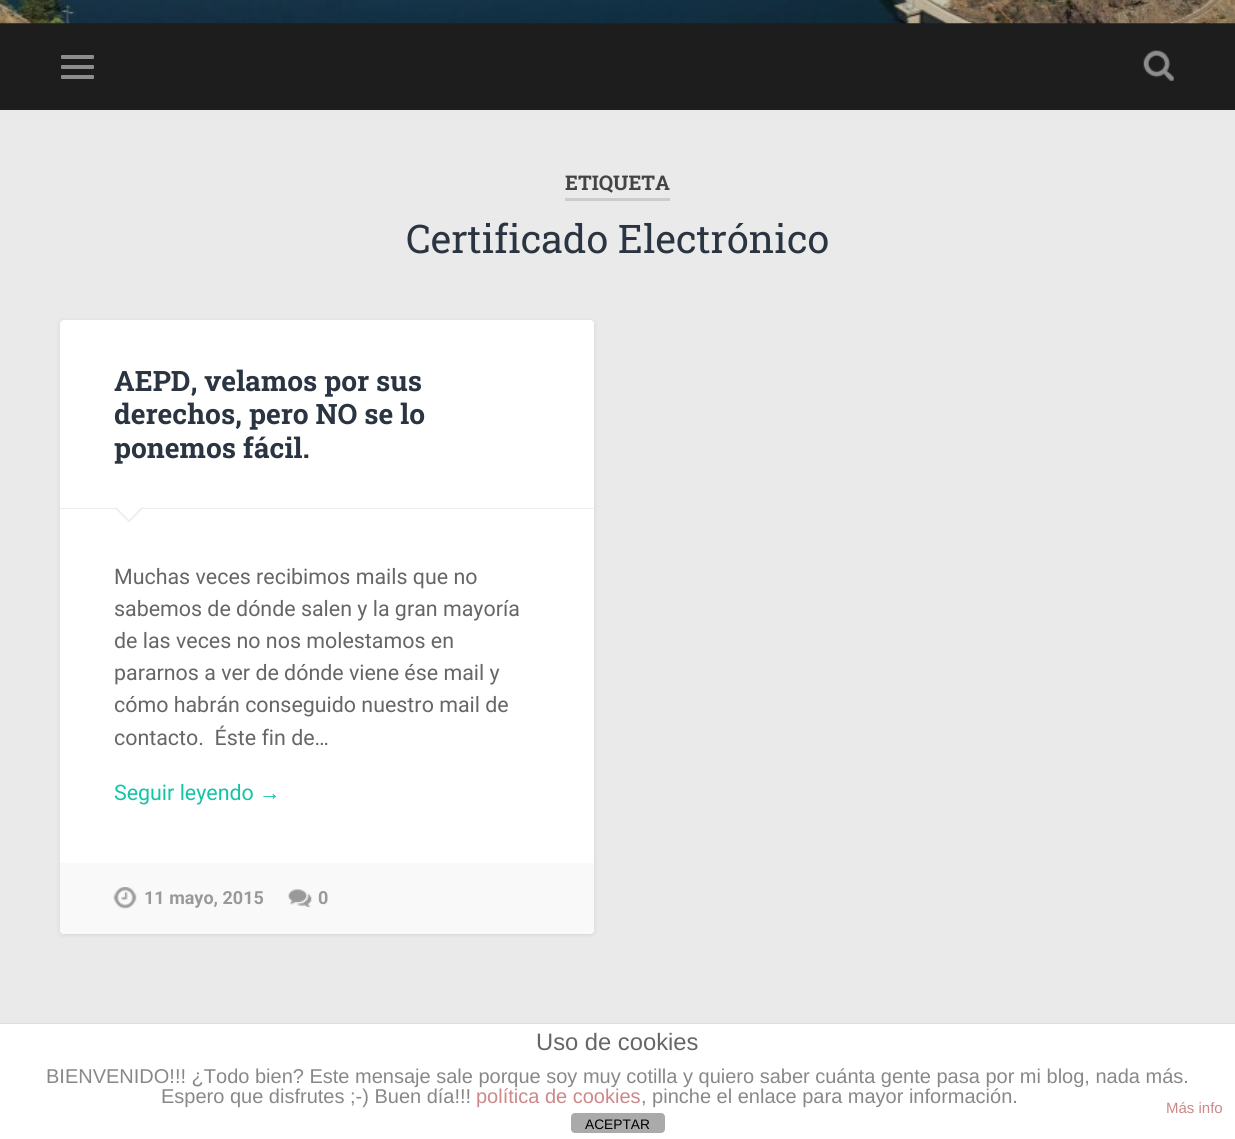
#include <cairo.h>
#include <math.h>
#include <stddef.h>


static void rgb(cairo_t *cr, int r, int g, int b)
{
	cairo_set_source_rgb(cr, r / 255.0, g / 255.0, b / 255.0);
}

static void face(cairo_t *cr, const char *family, double size, int italic, int bold)
{
	cairo_select_font_face(cr, family, italic ? CAIRO_FONT_SLANT_ITALIC : CAIRO_FONT_SLANT_NORMAL,
		bold ? CAIRO_FONT_WEIGHT_BOLD : CAIRO_FONT_WEIGHT_NORMAL);
	cairo_set_font_size(cr, size);
}

static void label(cairo_t *cr, double x, double y, const char *s)
{
	cairo_move_to(cr, x, y);
	cairo_show_text(cr, s);
}

static void rect(cairo_t *cr, double x, double y, double w, double h)
{
	cairo_rectangle(cr, x, y, w, h);
	cairo_fill(cr);
}

static void rrect(cairo_t *cr, double x, double y, double w, double h, double r)
{
	cairo_new_sub_path(cr);
	cairo_arc(cr, x + w - r, y + h - r, r, 0, M_PI / 2);
	cairo_arc(cr, x + r, y + h - r, r, M_PI / 2, M_PI);
	cairo_arc(cr, x + r, y + r, r, M_PI, 1.5 * M_PI);
	cairo_arc(cr, x + w - r, y + r, r, 1.5 * M_PI, 2 * M_PI);
	cairo_close_path(cr);
}

static void soft_shadow(cairo_t *cr, double x, double y, double w, double h, double r, double blur, double alpha)
{
	cairo_push_group_with_content(cr, CAIRO_CONTENT_ALPHA);
	cairo_set_operator(cr, CAIRO_OPERATOR_SOURCE);
	for (int i = 15; i >= -15 && fmin(w, h) + blur * i / 3 > 0; i -= 2) {
		double e = blur * i / 6;
		cairo_set_source_rgba(cr, 0, 0, 0, alpha * erfc((i - 1) / 8.5) / 2);
		rrect(cr, x - e, y - e, w + 2 * e, h + 2 * e, fmax(0, fmin(r + e + blur * .6, fmin(w, h) / 2 + e)));
		cairo_fill(cr);
	}
	cairo_pattern_t *soft = cairo_pop_group(cr);
	cairo_mask(cr, soft);
	cairo_pattern_destroy(soft);
}

static void image(cairo_t *cr, const char *path, double x, double y, double w, double h)
{
	cairo_surface_t *image = cairo_image_surface_create_from_png(path);
	cairo_save(cr);
	cairo_set_source_surface(cr, image, x, y);
	cairo_rectangle(cr, x, y, w, h);
	cairo_fill(cr);
	cairo_restore(cr);
	cairo_surface_destroy(image);
}

static void draw(cairo_t *cr) {
	rgb(cr, 234, 234, 234);
	cairo_paint(cr);
	rgb(cr, 29, 29, 29);
	rect(cr, 0, 23, 1235, 87);
	image(cr, "image0.png", 0, 0, 1235, 24);
	rgb(cr, 142, 142, 142);
	rrect(cr, 61, 55, 33, 4, 1);
	cairo_fill(cr);
	rrect(cr, 61, 65, 33, 4, 1);
	cairo_fill(cr);
	rrect(cr, 61, 75, 33, 4, 1);
	cairo_fill(cr);
	image(cr, "image1.png", 1143, 50, 31, 31);
	rgb(cr, 204, 204, 204);
	rect(cr, 565, 198, 105, 3);
	face(cr, "Roboto Slab", 20.25, 0, 1);
	rgb(cr, 68, 68, 68);
	label(cr, 565, 190, "ETIQUETA");
	face(cr, "Roboto Slab", 39.4, 0, 0);
	rgb(cr, 43, 53, 66);
	label(cr, 406, 253, "Certificado Electrónico");
	rgb(cr, 0, 0, 0);
	soft_shadow(cr, 60, 321, 534, 614, 4, 2.5, 0.1);
	rgb(cr, 255, 255, 255);
	rrect(cr, 60, 320, 534, 614, 4);
	cairo_fill(cr);
	rgb(cr, 238, 238, 238);
	rect(cr, 60, 508, 534, 1);
	face(cr, "Roboto Slab", 28.1, 0, 1);
	rgb(cr, 43, 53, 66);
	label(cr, 114, 391, "AEPD, velamos por sus");
	label(cr, 114, 424, "derechos, pero NO se lo");
	label(cr, 114, 458, "ponemos fácil.");
	rgb(cr, 238, 238, 238);
	cairo_new_path(cr);
	cairo_move_to(cr, 114, 507.5);
	cairo_line_to(cr, 144, 507.5);
	cairo_line_to(cr, 129, 522.5);
	cairo_close_path(cr);
	cairo_fill(cr);
	rgb(cr, 255, 255, 255);
	cairo_new_path(cr);
	cairo_move_to(cr, 115, 506);
	cairo_line_to(cr, 142.5, 506);
	cairo_line_to(cr, 129, 520);
	cairo_close_path(cr);
	cairo_fill(cr);
	face(cr, "Roboto", 21.4, 0, 0);
	rgb(cr, 102, 102, 102);
	label(cr, 114, 584, "Muchas veces recibimos mails que no");
	label(cr, 114, 616, "sabemos de dónde salen y la gran mayoría");
	label(cr, 114, 648, "de las veces no nos molestamos en");
	label(cr, 114, 680, "pararnos a ver de dónde viene ése mail y");
	label(cr, 114, 712, "cómo habrán conseguido nuestro mail de");
	label(cr, 114, 745, "contacto.  Éste fin de…");
	rgb(cr, 19, 196, 165);
	label(cr, 114, 800, "Seguir leyendo");
	face(cr, "Liberation Sans", 21.4, 0, 0);
	label(cr, 259, 800, "→");
	rgb(cr, 249, 249, 249);
	cairo_new_path(cr);
	cairo_move_to(cr, 60, 863);
	cairo_line_to(cr, 594, 863);
	cairo_line_to(cr, 594, 930);
	cairo_curve_to(cr, 594, 932, 592, 934, 590, 934);
	cairo_line_to(cr, 64, 934);
	cairo_curve_to(cr, 62, 934, 60, 932, 60, 930);
	cairo_close_path(cr);
	cairo_fill(cr);
	image(cr, "image2.png", 113, 887, 24, 22);
	face(cr, "Roboto", 18, 0, 1);
	rgb(cr, 153, 153, 153);
	label(cr, 144, 904, "11 mayo, 2015");
	image(cr, "image3.png", 288, 889, 24, 18);
	label(cr, 318, 904, "0");
	rgb(cr, 255, 255, 255);
	rect(cr, 0, 1024, 1235, 115);
	rgb(cr, 221, 221, 221);
	rect(cr, 0, 1023, 1235, 1);
	face(cr, "Liberation Sans", 23.75, 0, 0);
	rgb(cr, 102, 102, 102);
	label(cr, 536, 1050, "Uso de cookies");
	face(cr, "Liberation Sans", 20, 0, 0);
	rgb(cr, 136, 136, 136);
	label(cr, 46, 1083, "BIENVENIDO!!! ¿Todo bien? Este mensaje sale porque soy muy cotilla y quiero saber cuánta gente pasa por mi blog, nada más.");
	label(cr, 161, 1103, "Espero que disfrutes ;-) Buen día!!!");
	rgb(cr, 204, 136, 136);
	label(cr, 476, 1103, "política de cookies");
	rgb(cr, 136, 136, 136);
	label(cr, 641, 1103, ", pinche el enlace para mayor información.");
	face(cr, "Liberation Sans", 15, 0, 0);
	rgb(cr, 204, 136, 136);
	label(cr, 1166, 1113, "Más info");
	rgb(cr, 170, 170, 170);
	rrect(cr, 571, 1113, 94, 20, 4);
	cairo_fill(cr);
	face(cr, "Liberation Sans", 13.75, 0, 0);
	rgb(cr, 0, 0, 0);
	label(cr, 585, 1129, "ACEPTAR");
}

int main(void) {
	cairo_surface_t *surface = cairo_image_surface_create(CAIRO_FORMAT_RGB24, 1235, 1139);
	cairo_t *cr = cairo_create(surface);
	cairo_font_options_t *options = cairo_font_options_create();
	cairo_font_options_set_hint_metrics(options, CAIRO_HINT_METRICS_OFF);
	cairo_font_options_set_hint_style(options, CAIRO_HINT_STYLE_NONE);
	cairo_set_font_options(cr, options);
	cairo_set_miter_limit(cr, 4);
	draw(cr);
	cairo_surface_write_to_png(surface, "render.png");
	cairo_font_options_destroy(options);
	cairo_destroy(cr);
	cairo_surface_destroy(surface);
	return 0;
}
